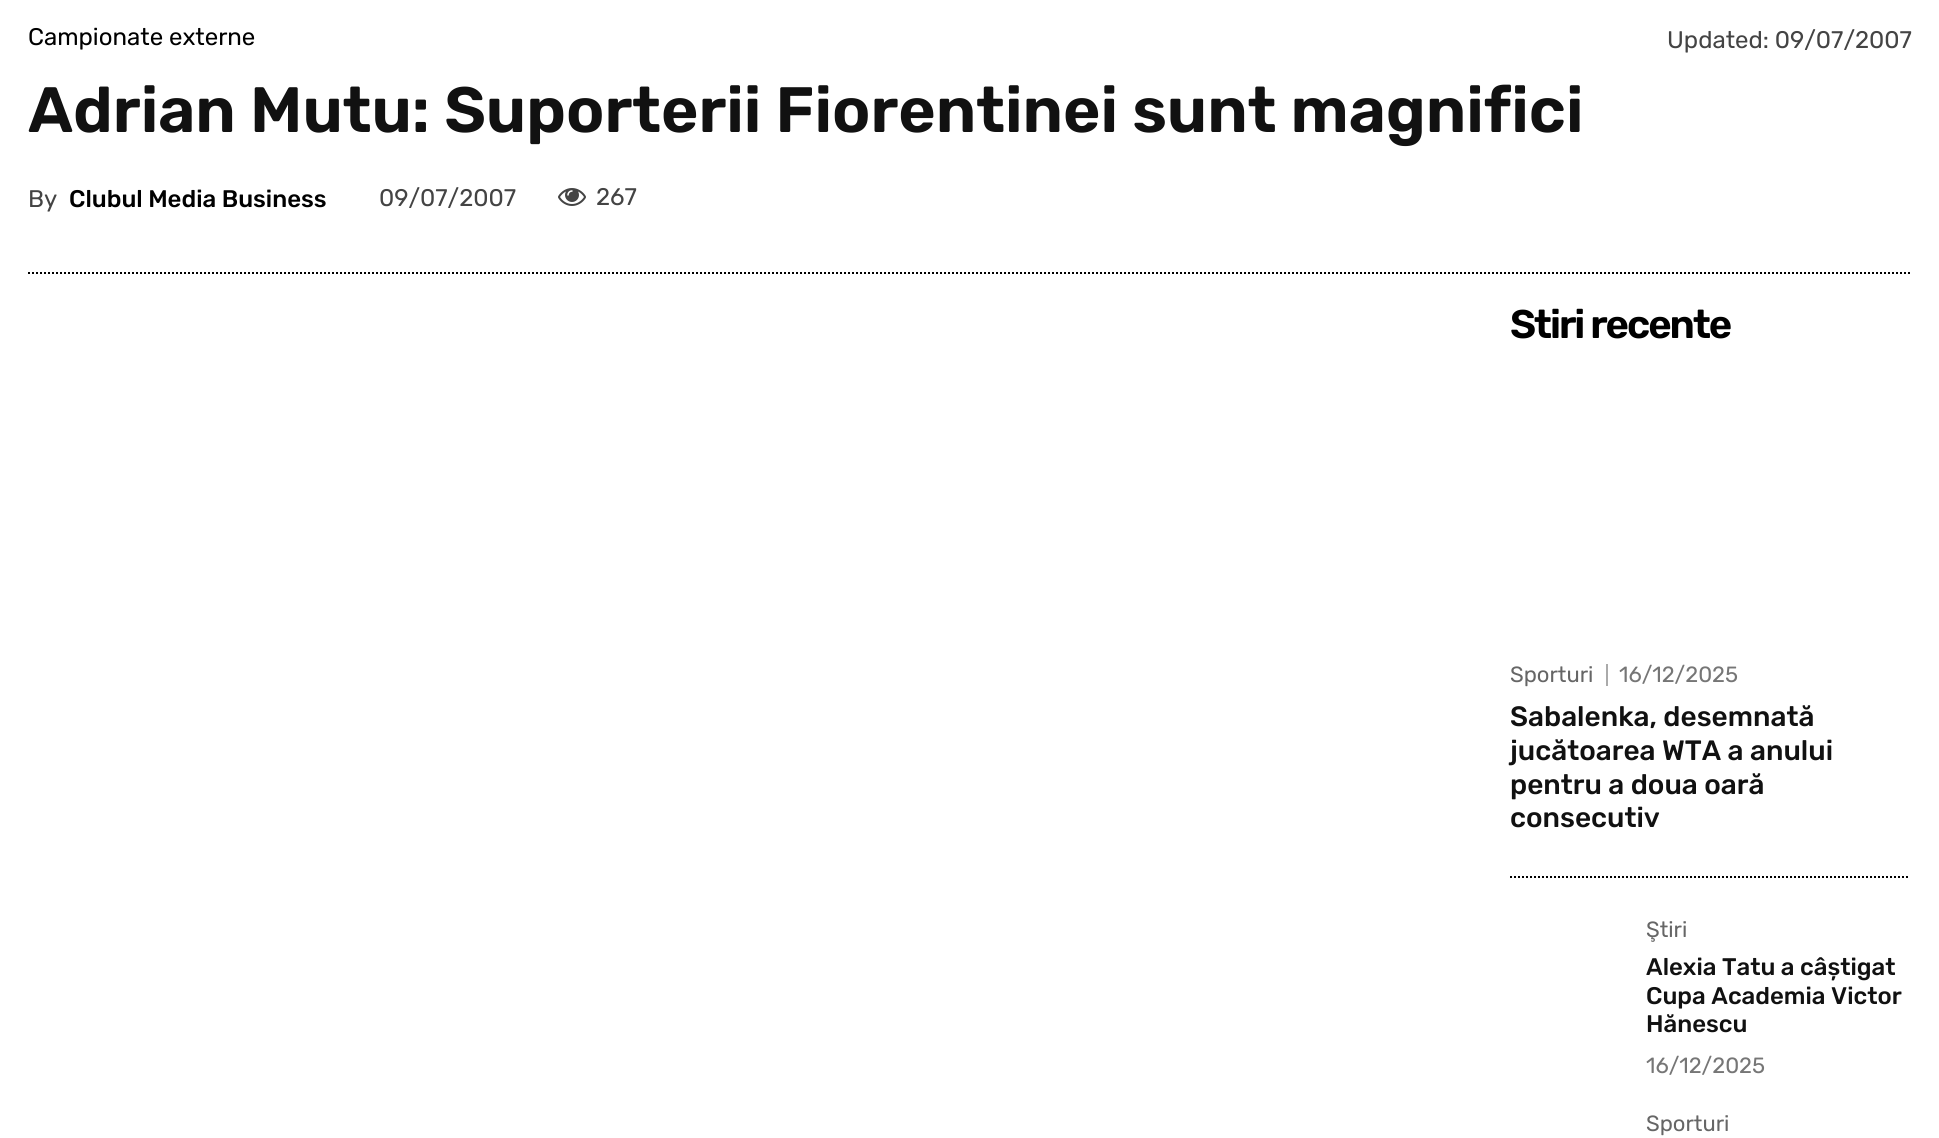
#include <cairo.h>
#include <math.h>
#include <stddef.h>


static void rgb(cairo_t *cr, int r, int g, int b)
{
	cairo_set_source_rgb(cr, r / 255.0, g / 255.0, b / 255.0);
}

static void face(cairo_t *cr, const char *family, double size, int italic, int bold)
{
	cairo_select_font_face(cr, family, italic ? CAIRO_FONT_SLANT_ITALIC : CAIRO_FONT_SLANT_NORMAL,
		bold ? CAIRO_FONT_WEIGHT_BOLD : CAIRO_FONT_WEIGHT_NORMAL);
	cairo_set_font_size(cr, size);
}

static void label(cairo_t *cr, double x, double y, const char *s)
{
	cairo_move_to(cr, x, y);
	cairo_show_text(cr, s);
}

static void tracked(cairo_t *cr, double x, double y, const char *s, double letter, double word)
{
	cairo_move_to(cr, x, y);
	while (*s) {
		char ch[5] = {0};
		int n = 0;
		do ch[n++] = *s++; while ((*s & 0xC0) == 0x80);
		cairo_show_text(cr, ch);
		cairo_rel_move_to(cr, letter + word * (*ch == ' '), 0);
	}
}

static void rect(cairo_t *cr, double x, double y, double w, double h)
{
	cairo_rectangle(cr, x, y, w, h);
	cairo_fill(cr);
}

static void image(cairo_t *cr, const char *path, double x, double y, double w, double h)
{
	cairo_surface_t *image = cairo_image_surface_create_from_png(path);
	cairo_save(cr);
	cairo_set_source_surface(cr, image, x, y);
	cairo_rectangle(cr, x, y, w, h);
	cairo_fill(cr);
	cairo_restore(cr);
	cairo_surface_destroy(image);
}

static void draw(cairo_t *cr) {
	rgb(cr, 255, 255, 255);
	cairo_paint(cr);
	face(cr, "Rubik", 24, 0, 0);
	rgb(cr, 0, 0, 0);
	label(cr, 28, 45, "Campionate externe");
	rgb(cr, 68, 68, 68);
	label(cr, 1667, 48, "Updated: 09/07/2007");
	face(cr, "Rubik SemiBold", 64, 0, 0);
	rgb(cr, 17, 17, 17);
	label(cr, 28, 132, "Adrian Mutu: Suporterii Fiorentinei sunt magnifici");
	face(cr, "Rubik", 24, 0, 0);
	rgb(cr, 68, 68, 68);
	label(cr, 28, 207, "By");
	face(cr, "Rubik Medium", 24, 0, 0);
	rgb(cr, 0, 0, 0);
	label(cr, 69, 207, "Clubul Media Business");
	face(cr, "Rubik", 24, 0, 0);
	rgb(cr, 68, 68, 68);
	label(cr, 379, 206, "09/07/2007");
	image(cr, "image0.png", 558, 188, 28, 18);
	label(cr, 596, 205, "267");
	cairo_new_path(cr);
	cairo_move_to(cr, 28, 273);
	cairo_line_to(cr, 1912, 273);
	rgb(cr, 0, 0, 0);
	cairo_set_dash(cr, (double[]){2, 2}, 2, 0);
	cairo_stroke(cr);
	face(cr, "Rubik SemiBold", 40, 0, 0);
	tracked(cr, 1510, 338, "Stiri recente", -2, 0);
	cairo_new_path(cr);
	cairo_move_to(cr, 1510, 877);
	cairo_line_to(cr, 1910, 877);
	cairo_stroke(cr);
	rgb(cr, 170, 170, 170);
	rect(cr, 1606, 664, 2, 22);
	face(cr, "Rubik", 22, 0, 0);
	rgb(cr, 102, 102, 102);
	label(cr, 1510, 682, "Sporturi");
	rgb(cr, 118, 118, 118);
	label(cr, 1619, 682, "16/12/2025");
	face(cr, "Rubik Medium", 28, 0, 0);
	rgb(cr, 17, 17, 17);
	label(cr, 1510, 726, "Sabalenka, desemnată");
	label(cr, 1510, 760, "jucătoarea WTA a anului");
	label(cr, 1510, 794, "pentru a doua oară");
	label(cr, 1510, 827, "consecutiv");
	face(cr, "Rubik", 22, 0, 0);
	rgb(cr, 102, 102, 102);
	label(cr, 1646, 937, "Ştiri");
	face(cr, "Rubik Medium", 24, 0, 0);
	rgb(cr, 17, 17, 17);
	label(cr, 1646, 975, "Alexia Tatu a câștigat");
	label(cr, 1646, 1004, "Cupa Academia Victor");
	label(cr, 1646, 1032, "Hănescu");
	face(cr, "Rubik", 22, 0, 0);
	rgb(cr, 118, 118, 118);
	label(cr, 1646, 1073, "16/12/2025");
	rgb(cr, 102, 102, 102);
	label(cr, 1646, 1131, "Sporturi");
}

int main(void) {
	cairo_surface_t *surface = cairo_image_surface_create(CAIRO_FORMAT_RGB24, 1939, 1138);
	cairo_t *cr = cairo_create(surface);
	cairo_font_options_t *options = cairo_font_options_create();
	cairo_font_options_set_hint_metrics(options, CAIRO_HINT_METRICS_OFF);
	cairo_font_options_set_hint_style(options, CAIRO_HINT_STYLE_NONE);
	cairo_set_font_options(cr, options);
	cairo_set_miter_limit(cr, 4);
	draw(cr);
	cairo_surface_write_to_png(surface, "render.png");
	cairo_font_options_destroy(options);
	cairo_destroy(cr);
	cairo_surface_destroy(surface);
	return 0;
}
